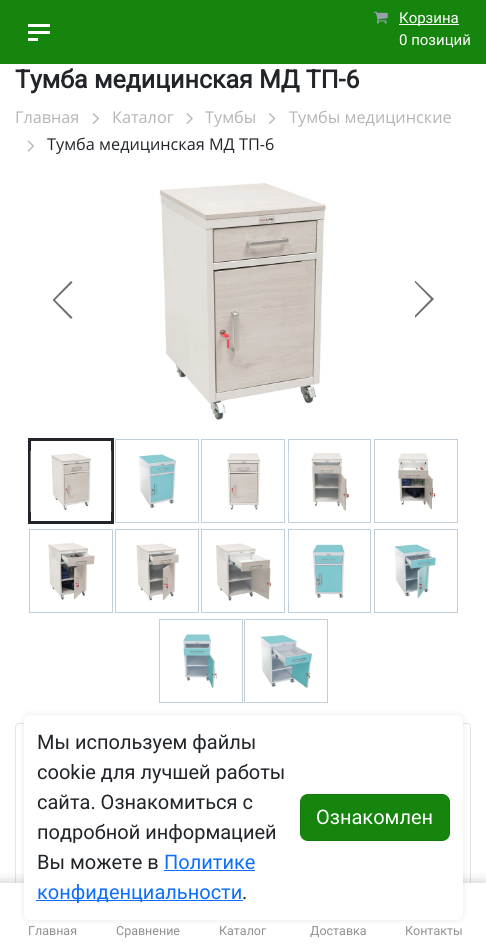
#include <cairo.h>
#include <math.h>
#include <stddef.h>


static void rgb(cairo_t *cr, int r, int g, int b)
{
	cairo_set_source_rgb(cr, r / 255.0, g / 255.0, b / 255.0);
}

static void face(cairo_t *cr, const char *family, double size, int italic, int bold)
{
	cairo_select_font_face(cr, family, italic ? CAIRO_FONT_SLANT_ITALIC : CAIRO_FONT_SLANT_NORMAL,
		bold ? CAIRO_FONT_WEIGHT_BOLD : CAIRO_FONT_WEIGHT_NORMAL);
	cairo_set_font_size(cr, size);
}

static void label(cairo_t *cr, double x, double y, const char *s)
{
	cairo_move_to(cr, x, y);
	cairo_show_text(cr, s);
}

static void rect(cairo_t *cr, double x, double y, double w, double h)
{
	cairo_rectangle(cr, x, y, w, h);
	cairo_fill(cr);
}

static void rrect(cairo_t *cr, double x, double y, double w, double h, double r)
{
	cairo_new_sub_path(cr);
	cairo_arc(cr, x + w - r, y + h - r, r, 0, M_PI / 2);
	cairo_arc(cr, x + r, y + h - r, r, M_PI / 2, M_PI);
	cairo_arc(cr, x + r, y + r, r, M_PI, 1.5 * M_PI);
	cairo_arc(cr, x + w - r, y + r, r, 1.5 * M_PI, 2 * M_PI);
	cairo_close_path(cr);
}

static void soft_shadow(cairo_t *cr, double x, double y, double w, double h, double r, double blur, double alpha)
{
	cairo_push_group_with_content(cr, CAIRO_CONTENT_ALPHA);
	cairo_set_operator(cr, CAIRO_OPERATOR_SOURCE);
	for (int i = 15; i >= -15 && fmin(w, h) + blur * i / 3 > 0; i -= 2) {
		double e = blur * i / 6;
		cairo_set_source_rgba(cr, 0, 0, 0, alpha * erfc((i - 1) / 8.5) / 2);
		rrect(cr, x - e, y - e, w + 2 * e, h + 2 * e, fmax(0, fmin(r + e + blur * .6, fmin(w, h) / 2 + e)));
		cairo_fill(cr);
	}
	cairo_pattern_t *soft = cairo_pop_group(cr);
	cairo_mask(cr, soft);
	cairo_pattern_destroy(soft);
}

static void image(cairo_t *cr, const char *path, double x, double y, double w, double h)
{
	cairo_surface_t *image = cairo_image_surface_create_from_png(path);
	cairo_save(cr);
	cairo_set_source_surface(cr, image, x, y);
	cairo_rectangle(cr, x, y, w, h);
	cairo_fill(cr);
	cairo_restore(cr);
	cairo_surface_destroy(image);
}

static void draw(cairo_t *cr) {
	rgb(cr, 255, 255, 255);
	cairo_paint(cr);
	rgb(cr, 21, 133, 14);
	rect(cr, 0, 0, 486, 64);
	rgb(cr, 255, 255, 255);
	rect(cr, 28, 24, 22, 3);
	rect(cr, 28, 31, 22, 3);
	rect(cr, 28, 38, 10, 3);
	image(cr, "image0.png", 373, 11, 15, 13);
	rect(cr, 399, 24, 60, 1);
	face(cr, "Roboto", 15, 0, 0);
	label(cr, 399, 23, "Корзина");
	label(cr, 399, 45, "0 позиций");
	face(cr, "Roboto", 25, 0, 1);
	rgb(cr, 33, 37, 41);
	label(cr, 15, 88, "Тумба медицинская МД ТП-6");
	face(cr, "Open Sans", 16.25, 0, 0);
	rgb(cr, 182, 181, 181);
	label(cr, 15, 123, "Главная");
	image(cr, "image1.png", 92, 113, 7, 11);
	label(cr, 112, 123, "Каталог");
	image(cr, "image2.png", 186, 113, 7, 11);
	label(cr, 205, 123, "Тумбы");
	image(cr, "image3.png", 269, 113, 7, 11);
	label(cr, 289, 123, "Тумбы медицинские");
	image(cr, "image4.png", 27, 140, 7, 12);
	rgb(cr, 33, 37, 41);
	label(cr, 47, 150, "Тумба медицинская МД ТП-6");
	rgb(cr, 110, 110, 110);
	cairo_set_fill_rule(cr, CAIRO_FILL_RULE_EVEN_ODD);
	cairo_new_path(cr);
	cairo_move_to(cr, 72.5, 317.5);
	cairo_line_to(cr, 55, 300);
	cairo_line_to(cr, 72.5, 282.5);
	cairo_line_to(cr, 71, 281);
	cairo_line_to(cr, 52.5, 300);
	cairo_line_to(cr, 71, 319);
	cairo_close_path(cr);
	cairo_fill(cr);
	image(cr, "image5.png", 159, 183, 167, 237);
	cairo_save(cr);
	cairo_set_fill_rule(cr, CAIRO_FILL_RULE_WINDING);
	cairo_rectangle(cr, 415, 281, 20, 38);
	cairo_clip(cr);
	cairo_set_fill_rule(cr, CAIRO_FILL_RULE_EVEN_ODD);
	cairo_new_path(cr);
	cairo_move_to(cr, 414, 281.5);
	cairo_line_to(cr, 431, 299);
	cairo_line_to(cr, 414, 316.5);
	cairo_line_to(cr, 415, 318);
	cairo_line_to(cr, 434, 299);
	cairo_line_to(cr, 415, 280.5);
	cairo_close_path(cr);
	cairo_fill(cr);
	cairo_restore(cr);
	cairo_rectangle(cr, 29.5, 439.5, 83, 83);
	rgb(cr, 33, 37, 41);
	cairo_set_line_width(cr, 3);
	cairo_stroke(cr);
	image(cr, "image6.png", 30, 450, 82, 62);
	cairo_rectangle(cr, 115.5, 439.5, 83, 83);
	rgb(cr, 192, 207, 218);
	cairo_set_line_width(cr, 1);
	cairo_stroke(cr);
	image(cr, "image7.png", 138, 454, 38, 54);
	cairo_rectangle(cr, 201.5, 439.5, 83, 83);
	cairo_stroke(cr);
	image(cr, "image8.png", 227, 453, 34, 57);
	cairo_rectangle(cr, 288.5, 439.5, 82, 83);
	cairo_stroke(cr);
	image(cr, "image9.png", 288, 451, 61, 61);
	cairo_rectangle(cr, 374.5, 439.5, 83, 83);
	cairo_stroke(cr);
	image(cr, "image10.png", 398, 453, 38, 57);
	cairo_rectangle(cr, 29.5, 529.5, 83, 83);
	cairo_stroke(cr);
	image(cr, "image11.png", 48, 542, 47, 58);
	cairo_rectangle(cr, 115.5, 529.5, 83, 83);
	cairo_stroke(cr);
	image(cr, "image12.png", 136, 543, 43, 58);
	cairo_rectangle(cr, 201.5, 529.5, 83, 83);
	cairo_stroke(cr);
	image(cr, "image13.png", 216, 543, 56, 58);
	cairo_rectangle(cr, 288.5, 529.5, 82, 83);
	cairo_stroke(cr);
	image(cr, "image14.png", 288, 541, 57, 61);
	cairo_rectangle(cr, 374.5, 529.5, 83, 83);
	cairo_stroke(cr);
	image(cr, "image15.png", 394, 544, 42, 54);
	cairo_rectangle(cr, 159.5, 619.5, 83, 83);
	cairo_stroke(cr);
	image(cr, "image16.png", 183, 634, 34, 54);
	cairo_rectangle(cr, 244.5, 619.5, 83, 83);
	cairo_stroke(cr);
	image(cr, "image17.png", 260, 635, 53, 53);
	rrect(cr, 15.5, 723.5, 455, 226, 3.5);
	rgb(cr, 228, 228, 228);
	cairo_stroke(cr);
	rgb(cr, 0, 0, 0);
	soft_shadow(cr, 0, 880, 486, 63, 0, 5, 0.15);
	rgb(cr, 255, 255, 255);
	rect(cr, 0, 883, 486, 62);
	rgb(cr, 0, 0, 0);
	soft_shadow(cr, 24, 715, 439, 205, 6, 3, 0.1);
	rgb(cr, 255, 255, 255);
	rrect(cr, 24, 715, 439, 205, 6);
	cairo_fill(cr);
	face(cr, "Roboto", 20, 0, 0);
	rgb(cr, 33, 37, 41);
	label(cr, 37, 749, "Мы используем файлы");
	label(cr, 37, 779, "cookie для лучшей работы");
	label(cr, 37, 809, "сайта. Ознакомиться с");
	label(cr, 37, 839, "подробной информацией");
	label(cr, 37, 869, "Вы можете в");
	rgb(cr, 13, 110, 253);
	label(cr, 164, 869, "Политике");
	rect(cr, 164, 870, 91, 1);
	rect(cr, 36, 900, 207, 1);
	label(cr, 37, 899, "конфиденциальности");
	rgb(cr, 33, 37, 41);
	label(cr, 242, 899, ".");
	rgb(cr, 21, 133, 14);
	rrect(cr, 300.5, 794.5, 149, 46, 7.5);
	cairo_fill_preserve(cr);
	rgb(cr, 20, 121, 13);
	cairo_stroke(cr);
	rgb(cr, 255, 255, 255);
	label(cr, 316, 824, "Ознакомлен");
	face(cr, "Roboto", 12.5, 0, 0);
	rgb(cr, 144, 144, 144);
	label(cr, 28, 935, "Главная");
	label(cr, 116, 935, "Сравнение");
	label(cr, 219, 935, "Каталог");
	label(cr, 310, 935, "Доставка");
	label(cr, 405, 935, "Контакты");
}

int main(void) {
	cairo_surface_t *surface = cairo_image_surface_create(CAIRO_FORMAT_RGB24, 486, 945);
	cairo_t *cr = cairo_create(surface);
	cairo_font_options_t *options = cairo_font_options_create();
	cairo_font_options_set_hint_metrics(options, CAIRO_HINT_METRICS_OFF);
	cairo_font_options_set_hint_style(options, CAIRO_HINT_STYLE_NONE);
	cairo_set_font_options(cr, options);
	cairo_set_miter_limit(cr, 4);
	draw(cr);
	cairo_surface_write_to_png(surface, "render.png");
	cairo_font_options_destroy(options);
	cairo_destroy(cr);
	cairo_surface_destroy(surface);
	return 0;
}
